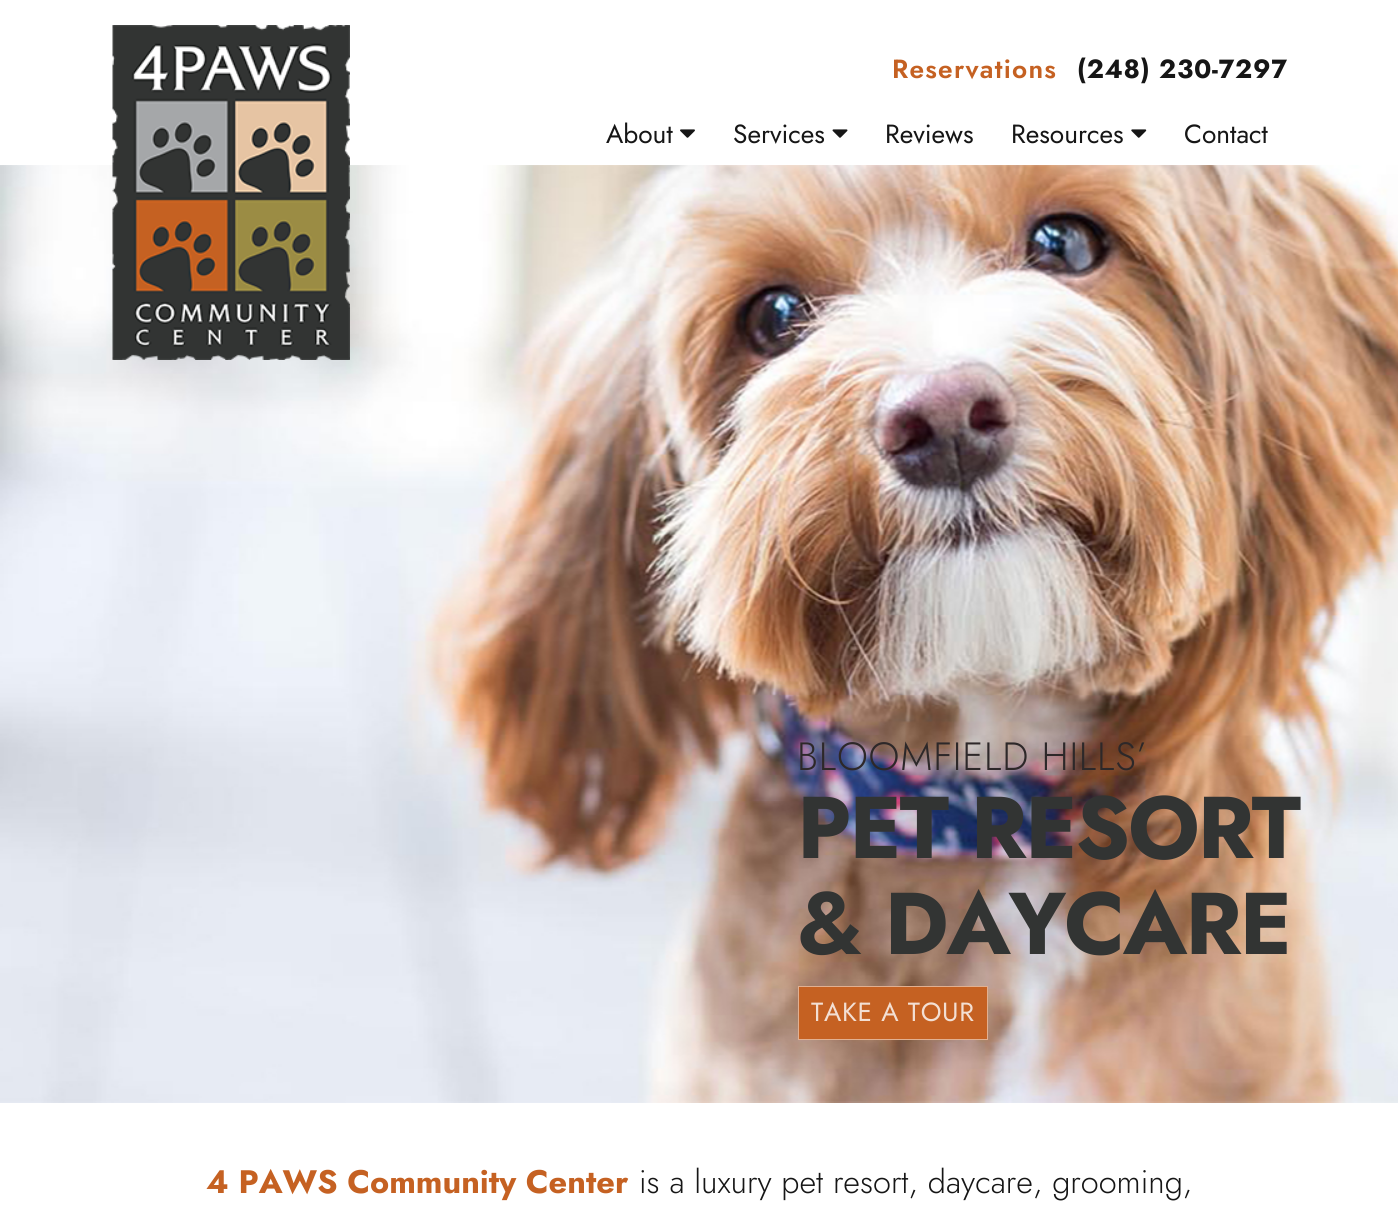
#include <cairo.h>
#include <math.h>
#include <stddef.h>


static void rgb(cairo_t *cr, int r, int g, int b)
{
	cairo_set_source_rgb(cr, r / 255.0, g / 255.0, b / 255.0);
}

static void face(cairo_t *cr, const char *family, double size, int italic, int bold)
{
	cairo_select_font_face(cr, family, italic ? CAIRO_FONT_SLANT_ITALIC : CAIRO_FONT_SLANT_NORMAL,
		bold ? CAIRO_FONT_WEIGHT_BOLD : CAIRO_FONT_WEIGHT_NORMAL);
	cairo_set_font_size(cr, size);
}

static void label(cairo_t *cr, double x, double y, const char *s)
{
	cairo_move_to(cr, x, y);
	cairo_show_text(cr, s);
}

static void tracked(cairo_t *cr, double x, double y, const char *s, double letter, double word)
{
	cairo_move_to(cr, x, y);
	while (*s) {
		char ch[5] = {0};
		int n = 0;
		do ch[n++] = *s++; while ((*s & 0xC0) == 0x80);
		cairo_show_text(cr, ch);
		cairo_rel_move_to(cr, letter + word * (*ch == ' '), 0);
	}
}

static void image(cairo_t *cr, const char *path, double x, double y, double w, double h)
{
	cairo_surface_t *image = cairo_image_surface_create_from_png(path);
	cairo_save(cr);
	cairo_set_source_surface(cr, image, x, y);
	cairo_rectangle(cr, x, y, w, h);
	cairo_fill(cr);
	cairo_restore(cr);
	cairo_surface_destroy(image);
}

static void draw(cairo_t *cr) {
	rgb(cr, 255, 255, 255);
	cairo_paint(cr);
	image(cr, "image4.png", 0, 165, 1398, 938);
	image(cr, "image0.png", 112, 25, 238, 335);
	face(cr, "Jost SemiBold", 26.25, 0, 0);
	rgb(cr, 197, 97, 34);
	tracked(cr, 892, 78, "Reservations", 1.25, 0);
	face(cr, "Jost", 26.25, 0, 1);
	rgb(cr, 22, 22, 22);
	tracked(cr, 1077, 78, "(248) 230-7297", 0.7, 0);
	face(cr, "Jost", 26.25, 0, 0);
	label(cr, 606, 143, "About");
	image(cr, "image1.png", 680, 129, 15, 9);
	label(cr, 733, 143, "Services");
	image(cr, "image2.png", 832, 129, 16, 9);
	label(cr, 885, 143, "Reviews");
	label(cr, 1011, 143, "Resources");
	image(cr, "image3.png", 1131, 129, 16, 9);
	label(cr, 1184, 143, "Contact");
	face(cr, "Jost", 32.5, 0, 1);
	rgb(cr, 197, 97, 34);
	label(cr, 206, 1193, "4 PAWS Community Center");
	face(cr, "Jost Light", 32.5, 0, 0);
	rgb(cr, 22, 22, 22);
	label(cr, 639, 1193, "is a luxury pet resort, daycare, grooming,");
	face(cr, "Jost Light", 39.4, 0, 0);
	rgb(cr, 45, 40, 41);
	tracked(cr, 797, 770, "BLOOMFIELD HILLS’", 0.75, 0);
	face(cr, "Jost", 87.5, 0, 1);
	rgb(cr, 50, 52, 51);
	tracked(cr, 797, 858, "PET RESORT", -2.25, 0);
	tracked(cr, 797, 954, "& DAYCARE", -2.25, 0);
	rgb(cr, 197, 97, 34);
	cairo_rectangle(cr, 798.5, 986.5, 189, 53);
	cairo_fill_preserve(cr);
	rgb(cr, 226, 176, 145);
	cairo_set_line_width(cr, 1);
	cairo_stroke(cr);
	face(cr, "Jost", 26.25, 0, 0);
	rgb(cr, 243, 223, 211);
	tracked(cr, 811, 1021, "TAKE A TOUR", 0.7, 0);
}

int main(void) {
	cairo_surface_t *surface = cairo_image_surface_create(CAIRO_FORMAT_RGB24, 1398, 1230);
	cairo_t *cr = cairo_create(surface);
	cairo_font_options_t *options = cairo_font_options_create();
	cairo_font_options_set_hint_metrics(options, CAIRO_HINT_METRICS_OFF);
	cairo_font_options_set_hint_style(options, CAIRO_HINT_STYLE_NONE);
	cairo_set_font_options(cr, options);
	cairo_set_miter_limit(cr, 4);
	draw(cr);
	cairo_surface_write_to_png(surface, "render.png");
	cairo_font_options_destroy(options);
	cairo_destroy(cr);
	cairo_surface_destroy(surface);
	return 0;
}
